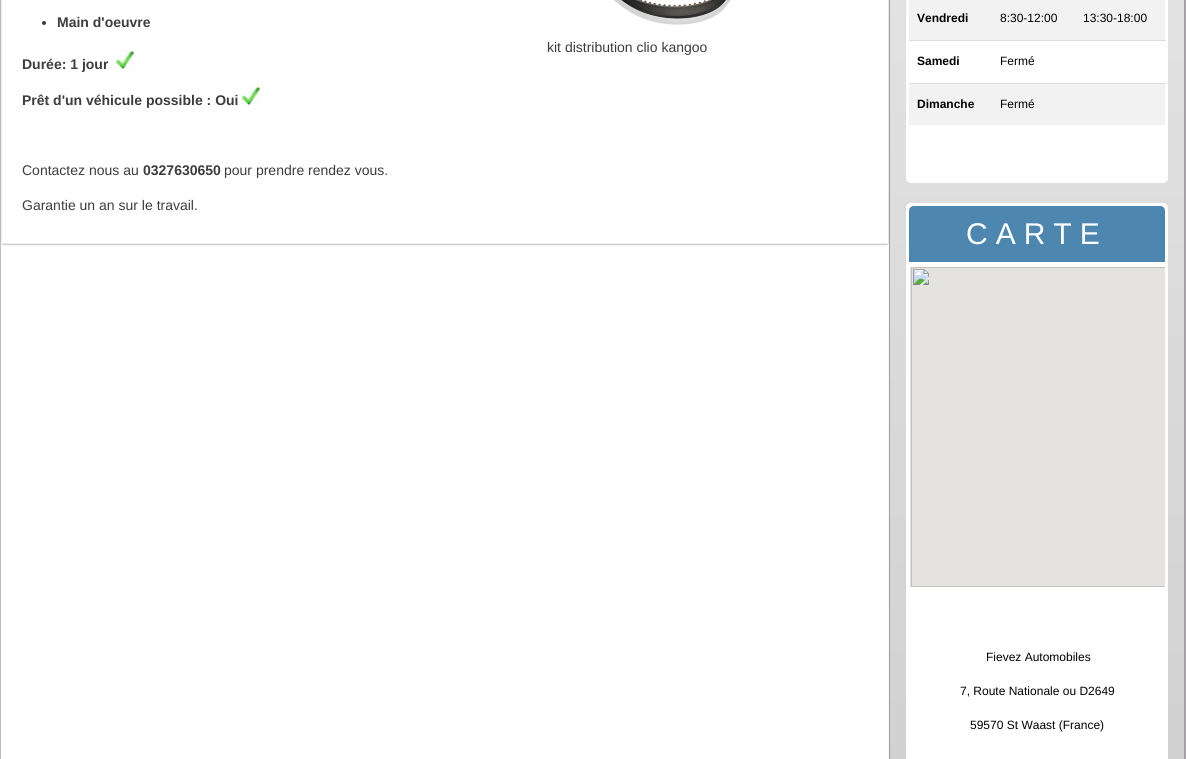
#include <cairo.h>
#include <math.h>
#include <stddef.h>


static void rgb(cairo_t *cr, int r, int g, int b)
{
	cairo_set_source_rgb(cr, r / 255.0, g / 255.0, b / 255.0);
}

static void face(cairo_t *cr, const char *family, double size, int italic, int bold)
{
	cairo_select_font_face(cr, family, italic ? CAIRO_FONT_SLANT_ITALIC : CAIRO_FONT_SLANT_NORMAL,
		bold ? CAIRO_FONT_WEIGHT_BOLD : CAIRO_FONT_WEIGHT_NORMAL);
	cairo_set_font_size(cr, size);
}

static void label(cairo_t *cr, double x, double y, const char *s)
{
	cairo_move_to(cr, x, y);
	cairo_show_text(cr, s);
}

static void tracked(cairo_t *cr, double x, double y, const char *s, double letter, double word)
{
	cairo_move_to(cr, x, y);
	while (*s) {
		char ch[5] = {0};
		int n = 0;
		do ch[n++] = *s++; while ((*s & 0xC0) == 0x80);
		cairo_show_text(cr, ch);
		cairo_rel_move_to(cr, letter + word * (*ch == ' '), 0);
	}
}

static void rect(cairo_t *cr, double x, double y, double w, double h)
{
	cairo_rectangle(cr, x, y, w, h);
	cairo_fill(cr);
}

static void rrect(cairo_t *cr, double x, double y, double w, double h, double r)
{
	cairo_new_sub_path(cr);
	cairo_arc(cr, x + w - r, y + h - r, r, 0, M_PI / 2);
	cairo_arc(cr, x + r, y + h - r, r, M_PI / 2, M_PI);
	cairo_arc(cr, x + r, y + r, r, M_PI, 1.5 * M_PI);
	cairo_arc(cr, x + w - r, y + r, r, 1.5 * M_PI, 2 * M_PI);
	cairo_close_path(cr);
}

static void soft_shadow(cairo_t *cr, double x, double y, double w, double h, double r, double blur, double alpha)
{
	cairo_push_group_with_content(cr, CAIRO_CONTENT_ALPHA);
	cairo_set_operator(cr, CAIRO_OPERATOR_SOURCE);
	for (int i = 15; i >= -15 && fmin(w, h) + blur * i / 3 > 0; i -= 2) {
		double e = blur * i / 6;
		cairo_set_source_rgba(cr, 0, 0, 0, alpha * erfc((i - 1) / 8.5) / 2);
		rrect(cr, x - e, y - e, w + 2 * e, h + 2 * e, fmax(0, fmin(r + e + blur * .6, fmin(w, h) / 2 + e)));
		cairo_fill(cr);
	}
	cairo_pattern_t *soft = cairo_pop_group(cr);
	cairo_mask(cr, soft);
	cairo_pattern_destroy(soft);
}

static void image(cairo_t *cr, const char *path, double x, double y, double w, double h)
{
	cairo_surface_t *image = cairo_image_surface_create_from_png(path);
	cairo_save(cr);
	cairo_set_source_surface(cr, image, x, y);
	cairo_rectangle(cr, x, y, w, h);
	cairo_fill(cr);
	cairo_restore(cr);
	cairo_surface_destroy(image);
}

static void draw(cairo_t *cr) {
	cairo_pattern_t *gradient;
	rgb(cr, 255, 255, 255);
	cairo_paint(cr);
	rgb(cr, 189, 189, 189);
	rect(cr, 0, 0, 1, 759);
	cairo_save(cr);
	cairo_rectangle(cr, 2, 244, 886, 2);
	cairo_clip(cr);
	rgb(cr, 115, 115, 115);
	soft_shadow(cr, 3, -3, 884, 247, 0, 1, 1);
	cairo_restore(cr);
	cairo_rectangle(cr, 1.5, -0.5, 887, 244);
	rgb(cr, 237, 237, 237);
	cairo_set_line_width(cr, 1);
	cairo_stroke(cr);
	rgb(cr, 61, 61, 61);
	cairo_arc(cr, 44, 23, 2, 0, 2 * M_PI);
	cairo_fill(cr);
	face(cr, "Liberation Sans", 14, 0, 1);
	label(cr, 57, 27, "Main d'oeuvre");
	image(cr, "image0.png", 614, 0, 117, 25);
	face(cr, "Liberation Sans", 14, 0, 0);
	label(cr, 547, 52, "kit distribution clio kangoo");
	face(cr, "Liberation Sans", 14, 0, 1);
	label(cr, 22, 69, "Durée: 1 jour");
	image(cr, "image1.png", 116, 51, 18, 18);
	label(cr, 22, 105, "Prêt d'un véhicule possible : Oui");
	image(cr, "image1.png", 242, 87, 18, 18);
	face(cr, "Liberation Sans", 14, 0, 0);
	label(cr, 22, 175, "Contactez nous au");
	face(cr, "Liberation Sans", 14, 0, 1);
	label(cr, 143, 175, "0327630650");
	face(cr, "Liberation Sans", 14, 0, 0);
	label(cr, 224, 175, "pour prendre rendez vous.");
	label(cr, 22, 210, "Garantie un an sur le travail.");
	rgb(cr, 163, 158, 163);
	soft_shadow(cr, 892, -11, 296, 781, 5, 2, 1);
	gradient = cairo_pattern_create_linear(890, -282, 890, 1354);
	cairo_pattern_add_color_stop_rgba(gradient, 0, 0.91, 0.91, 0.91, 1);
	cairo_pattern_add_color_stop_rgba(gradient, 1, 0.769, 0.769, 0.769, 1);
	cairo_set_source(cr, gradient);
	cairo_pattern_destroy(gradient);
	rect(cr, 890, 0, 294, 759);
	cairo_rectangle(cr, 889.5, -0.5, 295, 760);
	rgb(cr, 156, 156, 156);
	cairo_stroke(cr);
	rgb(cr, 255, 255, 255);
	rrect(cr, 907.5, -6.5, 259, 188, 3.5);
	cairo_fill_preserve(cr);
	cairo_set_line_width(cr, 3);
	cairo_stroke(cr);
	rgb(cr, 242, 242, 242);
	rect(cr, 909, 0, 256, 40);
	face(cr, "Liberation Sans", 12, 0, 1);
	rgb(cr, 0, 0, 0);
	label(cr, 917, 22, "Vendredi");
	face(cr, "Liberation Sans", 12, 0, 0);
	label(cr, 1000, 22, "8:30-12:00");
	label(cr, 1083, 22, "13:30-18:00");
	rgb(cr, 221, 221, 221);
	rect(cr, 909, 40, 257, 1);
	face(cr, "Liberation Sans", 12, 0, 1);
	rgb(cr, 0, 0, 0);
	label(cr, 917, 65, "Samedi");
	face(cr, "Liberation Sans", 12, 0, 0);
	label(cr, 1000, 65, "Fermé");
	rgb(cr, 242, 242, 242);
	rect(cr, 909, 84, 256, 41);
	face(cr, "Liberation Sans", 12, 0, 1);
	rgb(cr, 0, 0, 0);
	label(cr, 917, 108, "Dimanche");
	rgb(cr, 221, 221, 221);
	rect(cr, 909, 83, 257, 1);
	face(cr, "Liberation Sans", 12, 0, 0);
	rgb(cr, 0, 0, 0);
	label(cr, 1000, 108, "Fermé");
	rgb(cr, 255, 255, 255);
	rrect(cr, 907.5, 204.5, 259, 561, 3.5);
	cairo_fill_preserve(cr);
	cairo_stroke(cr);
	rgb(cr, 77, 135, 176);
	cairo_new_path(cr);
	cairo_move_to(cr, 914, 206);
	cairo_line_to(cr, 1160, 206);
	cairo_curve_to(cr, 1163, 206, 1165, 208, 1165, 211);
	cairo_line_to(cr, 1165, 262);
	cairo_line_to(cr, 909, 262);
	cairo_line_to(cr, 909, 211);
	cairo_curve_to(cr, 909, 208, 911, 206, 914, 206);
	cairo_close_path(cr);
	cairo_fill(cr);
	face(cr, "Liberation Sans", 30, 0, 0);
	rgb(cr, 255, 255, 255);
	tracked(cr, 966, 244, "CARTE", 8, 0);
	image(cr, "image2.png", 910, 267, 255, 320);
	face(cr, "Liberation Sans", 12, 0, 0);
	rgb(cr, 0, 0, 0);
	label(cr, 986, 661, "Fievez Automobiles");
	label(cr, 960, 695, "7, Route Nationale ou D2649");
	label(cr, 970, 729, "59570 St Waast (France)");
}

int main(void) {
	cairo_surface_t *surface = cairo_image_surface_create(CAIRO_FORMAT_RGB24, 1186, 759);
	cairo_t *cr = cairo_create(surface);
	cairo_font_options_t *options = cairo_font_options_create();
	cairo_font_options_set_hint_metrics(options, CAIRO_HINT_METRICS_OFF);
	cairo_font_options_set_hint_style(options, CAIRO_HINT_STYLE_NONE);
	cairo_set_font_options(cr, options);
	cairo_set_miter_limit(cr, 4);
	draw(cr);
	cairo_surface_write_to_png(surface, "render.png");
	cairo_font_options_destroy(options);
	cairo_destroy(cr);
	cairo_surface_destroy(surface);
	return 0;
}
